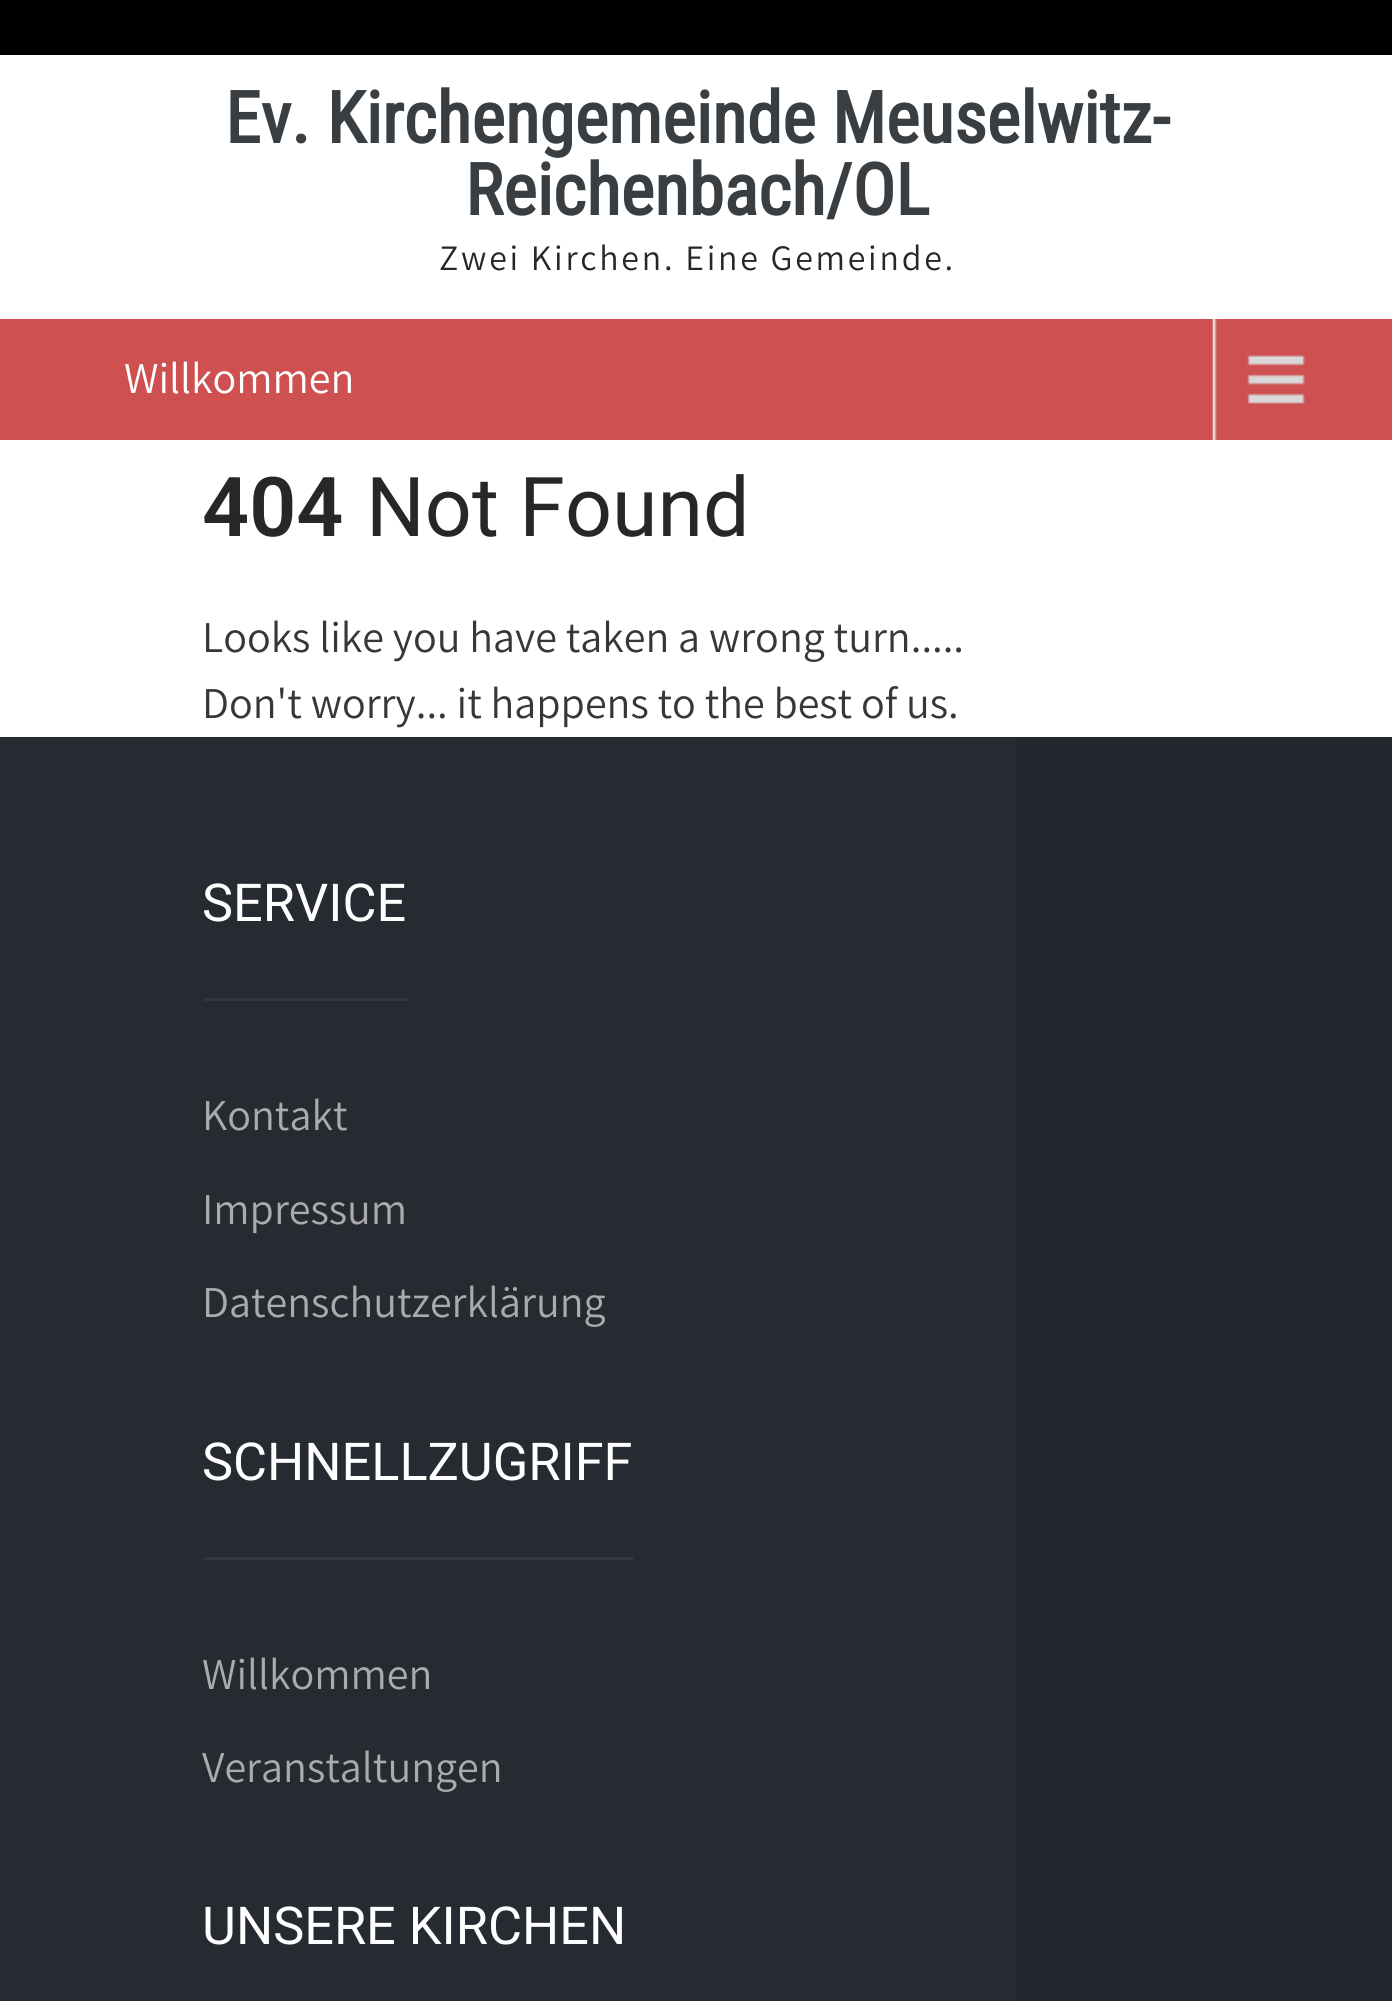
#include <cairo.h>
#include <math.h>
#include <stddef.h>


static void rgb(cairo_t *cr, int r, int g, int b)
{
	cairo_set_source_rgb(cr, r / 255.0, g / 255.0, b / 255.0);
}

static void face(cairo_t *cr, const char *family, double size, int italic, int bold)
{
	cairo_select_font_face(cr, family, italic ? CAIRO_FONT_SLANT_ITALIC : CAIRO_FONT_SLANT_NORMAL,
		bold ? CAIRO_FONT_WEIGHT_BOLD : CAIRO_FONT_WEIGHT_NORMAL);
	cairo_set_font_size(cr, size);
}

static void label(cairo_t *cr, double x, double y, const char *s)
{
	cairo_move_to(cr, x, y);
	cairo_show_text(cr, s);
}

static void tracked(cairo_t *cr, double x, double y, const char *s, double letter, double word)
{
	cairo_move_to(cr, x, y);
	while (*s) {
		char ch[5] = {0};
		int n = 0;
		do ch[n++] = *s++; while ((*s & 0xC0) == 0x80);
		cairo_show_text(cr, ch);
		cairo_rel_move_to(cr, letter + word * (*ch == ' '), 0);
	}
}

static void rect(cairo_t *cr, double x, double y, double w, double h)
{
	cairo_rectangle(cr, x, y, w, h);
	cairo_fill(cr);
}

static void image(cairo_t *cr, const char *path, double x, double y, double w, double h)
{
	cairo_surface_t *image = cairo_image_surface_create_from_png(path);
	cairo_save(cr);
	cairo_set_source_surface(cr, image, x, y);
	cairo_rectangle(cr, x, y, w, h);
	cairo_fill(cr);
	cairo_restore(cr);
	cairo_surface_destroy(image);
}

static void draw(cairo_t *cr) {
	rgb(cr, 255, 255, 255);
	cairo_paint(cr);
	rgb(cr, 0, 0, 0);
	rect(cr, 0, 0, 1392, 55);
	face(cr, "Roboto Condensed", 71.5, 0, 1);
	rgb(cr, 56, 62, 66);
	label(cr, 225, 143, "Ev. Kirchengemeinde Meuselwitz-");
	label(cr, 465, 215, "Reichenbach/OL");
	face(cr, "Assistant ExtraLight", 35.75, 0, 0);
	rgb(cr, 39, 39, 39);
	tracked(cr, 439, 270, "Zwei Kirchen. Eine Gemeinde.", 2.75, 0);
	rgb(cr, 206, 80, 81);
	rect(cr, 0, 319, 1392, 121);
	image(cr, "image0.png", 1212, 319, 93, 121);
	face(cr, "Assistant ExtraLight", 44, 0, 0);
	rgb(cr, 255, 255, 255);
	label(cr, 124, 393, "Willkommen");
	face(cr, "Roboto SemiBold", 82.5, 0, 0);
	rgb(cr, 39, 39, 39);
	label(cr, 202, 536, "404");
	face(cr, "Roboto", 82.5, 0, 0);
	label(cr, 366, 536, "Not Found");
	face(cr, "Assistant ExtraLight", 44, 0, 0);
	rgb(cr, 55, 55, 53);
	label(cr, 202, 652, "Looks like you have taken a wrong turn.....");
	label(cr, 202, 718, "Don't worry... it happens to the best of us.");
	rgb(cr, 36, 39, 46);
	rect(cr, 1015, 737, 377, 1264);
	rgb(cr, 38, 42, 49);
	rect(cr, 0, 737, 1015, 1264);
	rgb(cr, 51, 56, 64);
	rect(cr, 204, 998, 203, 3);
	face(cr, "Roboto", 52.25, 0, 0);
	rgb(cr, 255, 255, 255);
	label(cr, 202, 921, "SERVICE");
	face(cr, "Assistant ExtraLight", 44, 0, 0);
	rgb(cr, 171, 171, 171);
	label(cr, 202, 1130, "Kontakt");
	label(cr, 202, 1224, "Impressum");
	label(cr, 202, 1317, "Datenschutzerklärung");
	rgb(cr, 51, 56, 64);
	rect(cr, 204, 1557, 429, 3);
	face(cr, "Roboto", 52.25, 0, 0);
	rgb(cr, 255, 255, 255);
	label(cr, 202, 1480, "SCHNELLZUGRIFF");
	face(cr, "Assistant ExtraLight", 44, 0, 0);
	rgb(cr, 171, 171, 171);
	label(cr, 202, 1689, "Willkommen");
	label(cr, 202, 1782, "Veranstaltungen");
	face(cr, "Roboto", 52.25, 0, 0);
	rgb(cr, 255, 255, 255);
	label(cr, 202, 1944, "UNSERE KIRCHEN");
}

int main(void) {
	cairo_surface_t *surface = cairo_image_surface_create(CAIRO_FORMAT_RGB24, 1392, 2001);
	cairo_t *cr = cairo_create(surface);
	cairo_font_options_t *options = cairo_font_options_create();
	cairo_font_options_set_hint_metrics(options, CAIRO_HINT_METRICS_OFF);
	cairo_font_options_set_hint_style(options, CAIRO_HINT_STYLE_NONE);
	cairo_set_font_options(cr, options);
	cairo_set_miter_limit(cr, 4);
	draw(cr);
	cairo_surface_write_to_png(surface, "render.png");
	cairo_font_options_destroy(options);
	cairo_destroy(cr);
	cairo_surface_destroy(surface);
	return 0;
}
